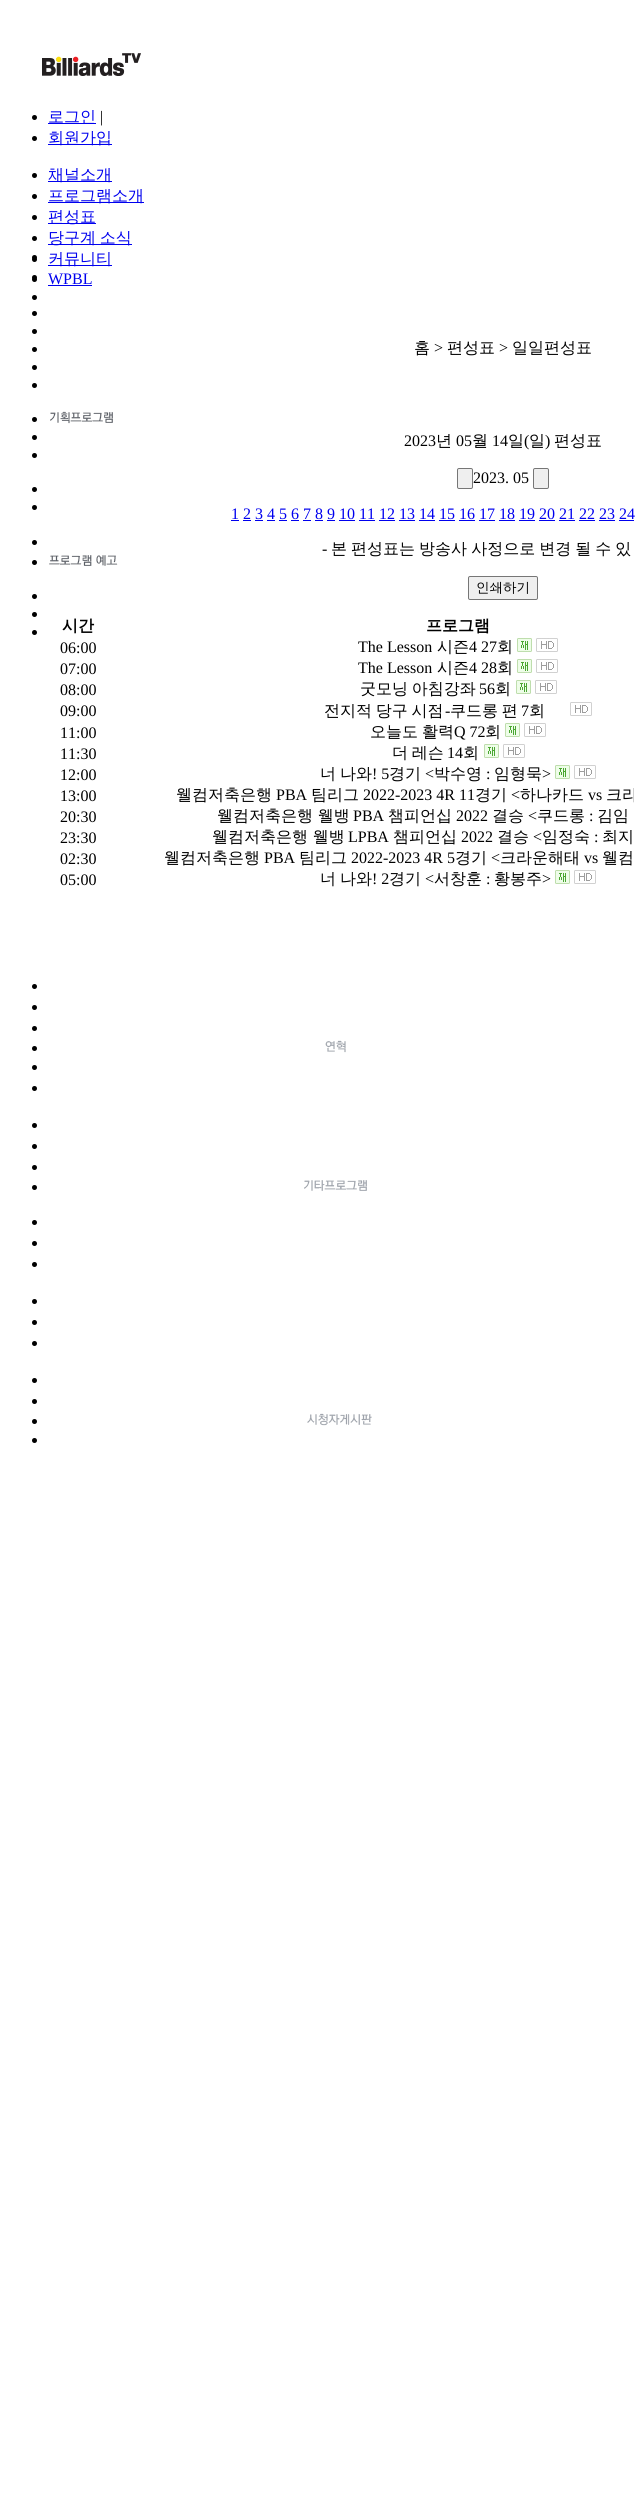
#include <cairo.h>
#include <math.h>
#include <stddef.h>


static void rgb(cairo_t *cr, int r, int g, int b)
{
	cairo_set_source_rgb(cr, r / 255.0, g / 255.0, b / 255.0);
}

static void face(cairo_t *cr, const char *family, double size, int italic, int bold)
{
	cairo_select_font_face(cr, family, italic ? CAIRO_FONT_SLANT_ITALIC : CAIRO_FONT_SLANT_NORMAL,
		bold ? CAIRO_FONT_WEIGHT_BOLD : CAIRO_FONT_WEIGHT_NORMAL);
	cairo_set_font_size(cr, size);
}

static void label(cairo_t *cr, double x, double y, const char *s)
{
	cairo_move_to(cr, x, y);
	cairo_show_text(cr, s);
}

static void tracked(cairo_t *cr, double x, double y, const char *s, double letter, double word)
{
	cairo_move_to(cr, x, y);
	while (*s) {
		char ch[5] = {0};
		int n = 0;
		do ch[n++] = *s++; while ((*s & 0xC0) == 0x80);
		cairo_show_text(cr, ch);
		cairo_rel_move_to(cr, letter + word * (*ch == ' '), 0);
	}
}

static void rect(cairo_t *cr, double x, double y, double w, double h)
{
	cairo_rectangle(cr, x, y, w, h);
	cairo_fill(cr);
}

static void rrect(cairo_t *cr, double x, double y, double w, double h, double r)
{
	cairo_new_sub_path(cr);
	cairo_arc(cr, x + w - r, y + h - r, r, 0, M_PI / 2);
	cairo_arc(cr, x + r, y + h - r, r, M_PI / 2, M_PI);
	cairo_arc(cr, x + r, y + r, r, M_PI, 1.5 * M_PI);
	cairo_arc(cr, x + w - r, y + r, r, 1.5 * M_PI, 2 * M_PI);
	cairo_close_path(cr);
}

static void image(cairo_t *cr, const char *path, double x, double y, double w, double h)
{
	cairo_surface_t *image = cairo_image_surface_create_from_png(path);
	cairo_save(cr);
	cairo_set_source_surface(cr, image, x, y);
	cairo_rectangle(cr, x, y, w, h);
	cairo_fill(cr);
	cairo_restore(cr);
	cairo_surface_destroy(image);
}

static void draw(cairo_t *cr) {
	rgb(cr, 255, 255, 255);
	cairo_paint(cr);
	image(cr, "image0.png", 42, 53, 99, 23);
	rgb(cr, 0, 0, 0);
	cairo_arc(cr, 34.5, 117.5, 2.5, 0, 2 * M_PI);
	cairo_fill(cr);
	rgb(cr, 0, 0, 238);
	rect(cr, 48, 123, 48, 1);
	face(cr, "WenQuanYi Zen Hei Medium", 16, 0, 0);
	label(cr, 48, 122, "로그인");
	face(cr, "Liberation Serif", 16, 0, 0);
	rgb(cr, 0, 0, 0);
	label(cr, 100, 122, "|");
	cairo_new_path(cr);
	cairo_arc(cr, 34.5, 138.5, 2.5, 0, 2 * M_PI);
	cairo_fill(cr);
	rgb(cr, 0, 0, 238);
	rect(cr, 48, 144, 64, 1);
	face(cr, "WenQuanYi Zen Hei Medium", 16, 0, 0);
	label(cr, 48, 143, "회원가입");
	rgb(cr, 0, 0, 0);
	cairo_new_path(cr);
	cairo_arc(cr, 34.5, 175.5, 2.5, 0, 2 * M_PI);
	cairo_fill(cr);
	rgb(cr, 0, 0, 238);
	rect(cr, 48, 181, 64, 1);
	label(cr, 48, 180, "채널소개");
	rgb(cr, 0, 0, 0);
	cairo_new_path(cr);
	cairo_arc(cr, 34.5, 196.5, 2.5, 0, 2 * M_PI);
	cairo_fill(cr);
	rgb(cr, 0, 0, 238);
	rect(cr, 48, 202, 96, 1);
	label(cr, 48, 201, "프로그램소개");
	rgb(cr, 0, 0, 0);
	cairo_new_path(cr);
	cairo_arc(cr, 34.5, 217.5, 2.5, 0, 2 * M_PI);
	cairo_fill(cr);
	rgb(cr, 0, 0, 238);
	rect(cr, 48, 223, 48, 1);
	label(cr, 48, 222, "편성표");
	rgb(cr, 0, 0, 0);
	cairo_new_path(cr);
	cairo_arc(cr, 34.5, 238.5, 2.5, 0, 2 * M_PI);
	cairo_fill(cr);
	rgb(cr, 0, 0, 238);
	rect(cr, 48, 244, 84, 1);
	tracked(cr, 48, 243, "당구계 소식", 0, -1);
	rgb(cr, 0, 0, 0);
	cairo_new_path(cr);
	cairo_arc(cr, 34.5, 257.5, 2.5, 0, 2 * M_PI);
	cairo_fill(cr);
	cairo_arc(cr, 34.5, 259.5, 2.5, 0, 2 * M_PI);
	cairo_fill(cr);
	rgb(cr, 0, 0, 238);
	rect(cr, 48, 265, 64, 1);
	label(cr, 48, 264, "커뮤니티");
	rgb(cr, 0, 0, 0);
	cairo_new_path(cr);
	cairo_arc(cr, 34.5, 277.5, 2.5, 0, 2 * M_PI);
	cairo_fill(cr);
	cairo_arc(cr, 34.5, 279.5, 2.5, 0, 2 * M_PI);
	cairo_fill(cr);
	face(cr, "Liberation Serif", 16, 0, 0);
	rgb(cr, 0, 0, 238);
	label(cr, 48, 284, "WPBL");
	rect(cr, 48, 285, 44, 1);
	rgb(cr, 0, 0, 0);
	cairo_new_path(cr);
	cairo_arc(cr, 34.5, 313.5, 2.5, 0, 2 * M_PI);
	cairo_fill(cr);
	cairo_arc(cr, 34.5, 331.5, 2.5, 0, 2 * M_PI);
	cairo_fill(cr);
	cairo_arc(cr, 34.5, 349.5, 2.5, 0, 2 * M_PI);
	cairo_fill(cr);
	cairo_arc(cr, 34.5, 367.5, 2.5, 0, 2 * M_PI);
	cairo_fill(cr);
	cairo_arc(cr, 34.5, 385.5, 2.5, 0, 2 * M_PI);
	cairo_fill(cr);
	cairo_arc(cr, 34.5, 419.5, 2.5, 0, 2 * M_PI);
	cairo_fill(cr);
	image(cr, "image1.png", 50, 411, 63, 13);
	cairo_arc(cr, 34.5, 437.5, 2.5, 0, 2 * M_PI);
	cairo_fill(cr);
	cairo_arc(cr, 34.5, 455.5, 2.5, 0, 2 * M_PI);
	cairo_fill(cr);
	cairo_arc(cr, 34.5, 489.5, 2.5, 0, 2 * M_PI);
	cairo_fill(cr);
	cairo_arc(cr, 34.5, 507.5, 2.5, 0, 2 * M_PI);
	cairo_fill(cr);
	cairo_arc(cr, 34.5, 542.5, 2.5, 0, 2 * M_PI);
	cairo_fill(cr);
	cairo_arc(cr, 34.5, 562.5, 2.5, 0, 2 * M_PI);
	cairo_fill(cr);
	image(cr, "image2.png", 49, 555, 69, 11);
	cairo_arc(cr, 34.5, 596.5, 2.5, 0, 2 * M_PI);
	cairo_fill(cr);
	cairo_arc(cr, 34.5, 614.5, 2.5, 0, 2 * M_PI);
	cairo_fill(cr);
	cairo_arc(cr, 34.5, 632.5, 2.5, 0, 2 * M_PI);
	cairo_fill(cr);
	cairo_arc(cr, 34.5, 297.5, 2.5, 0, 2 * M_PI);
	cairo_fill(cr);
	face(cr, "WenQuanYi Zen Hei Medium", 16, 0, 0);
	label(cr, 414, 353, "홈");
	face(cr, "Liberation Serif", 16, 0, 0);
	label(cr, 434, 353, ">");
	face(cr, "WenQuanYi Zen Hei Medium", 16, 0, 0);
	label(cr, 447, 353, "편성표");
	face(cr, "Liberation Serif", 16, 0, 0);
	label(cr, 499, 353, ">");
	face(cr, "WenQuanYi Zen Hei Medium", 16, 0, 0);
	label(cr, 512, 353, "일일편성표");
	face(cr, "Liberation Serif", 16, 0, 0);
	label(cr, 404, 446, "2023");
	face(cr, "WenQuanYi Zen Hei Medium", 16, 0, 0);
	label(cr, 436, 446, "년");
	face(cr, "Liberation Serif", 16, 0, 0);
	label(cr, 456, 446, "05");
	face(cr, "WenQuanYi Zen Hei Medium", 16, 0, 0);
	label(cr, 472, 446, "월");
	face(cr, "Liberation Serif", 16, 0, 0);
	label(cr, 492, 446, "14");
	face(cr, "WenQuanYi Zen Hei Medium", 16, 0, 0);
	label(cr, 508, 446, "일");
	face(cr, "Liberation Serif", 16, 0, 0);
	label(cr, 524, 446, "(");
	face(cr, "WenQuanYi Zen Hei Medium", 16, 0, 0);
	label(cr, 529, 446, "일");
	face(cr, "Liberation Serif", 16, 0, 0);
	label(cr, 545, 446, ")");
	face(cr, "WenQuanYi Zen Hei Medium", 16, 0, 0);
	label(cr, 554, 446, "편성표");
	rgb(cr, 239, 239, 239);
	rrect(cr, 457.5, 468.5, 15, 20, 1.5);
	cairo_fill_preserve(cr);
	rgb(cr, 118, 118, 118);
	cairo_set_line_width(cr, 1);
	cairo_stroke(cr);
	face(cr, "Liberation Serif", 16, 0, 0);
	rgb(cr, 0, 0, 0);
	label(cr, 473, 483, "2023. 05");
	rgb(cr, 239, 239, 239);
	rrect(cr, 533.5, 468.5, 15, 20, 1.5);
	cairo_fill_preserve(cr);
	rgb(cr, 118, 118, 118);
	cairo_stroke(cr);
	rgb(cr, 0, 0, 238);
	label(cr, 231, 519, "1 2 3 4 5 6 7 8 9 10 11 12 13 14 15 16 17 18 19 20 21 22 23 24");
	rect(cr, 231, 520, 8, 1);
	rect(cr, 243, 520, 8, 1);
	rect(cr, 255, 520, 8, 1);
	rect(cr, 267, 520, 8, 1);
	rect(cr, 279, 520, 8, 1);
	rect(cr, 291, 520, 8, 1);
	rect(cr, 303, 520, 8, 1);
	rect(cr, 315, 520, 8, 1);
	rect(cr, 327, 520, 8, 1);
	rect(cr, 339, 520, 16, 1);
	rect(cr, 359, 520, 16, 1);
	rect(cr, 379, 520, 16, 1);
	rect(cr, 399, 520, 16, 1);
	rect(cr, 419, 520, 16, 1);
	rect(cr, 439, 520, 16, 1);
	rect(cr, 459, 520, 16, 1);
	rect(cr, 479, 520, 16, 1);
	rect(cr, 499, 520, 16, 1);
	rect(cr, 519, 520, 16, 1);
	rect(cr, 539, 520, 16, 1);
	rect(cr, 559, 520, 16, 1);
	rect(cr, 579, 520, 16, 1);
	rect(cr, 599, 520, 16, 1);
	rect(cr, 619, 520, 15, 1);
	rgb(cr, 0, 0, 0);
	label(cr, 322, 554, "-");
	face(cr, "WenQuanYi Zen Hei Medium", 16, 0, 0);
	tracked(cr, 331, 554, "본 편성표는 방송사 사정으로 변경 될 수 있", 0, -0.75);
	rgb(cr, 239, 239, 239);
	rrect(cr, 468.5, 576.5, 69, 23, 1.5);
	cairo_fill_preserve(cr);
	rgb(cr, 118, 118, 118);
	cairo_stroke(cr);
	face(cr, "WenQuanYi Zen Hei Medium", 13.5, 0, 0);
	rgb(cr, 0, 0, 0);
	label(cr, 476, 592, "인쇄하기");
	face(cr, "WenQuanYi Zen Hei", 16, 0, 1);
	label(cr, 62, 631, "시간");
	label(cr, 426, 631, "프로그램");
	face(cr, "Liberation Serif", 16, 0, 0);
	label(cr, 60, 653, "06:00");
	label(cr, 358, 652, "The Lesson");
	face(cr, "WenQuanYi Zen Hei Medium", 16, 0, 0);
	label(cr, 437, 652, "시즌");
	face(cr, "Liberation Serif", 16, 0, 0);
	label(cr, 469, 652, "4 27");
	face(cr, "WenQuanYi Zen Hei Medium", 16, 0, 0);
	label(cr, 497, 652, "회");
	image(cr, "image3.png", 517, 638, 15, 14);
	image(cr, "image4.png", 536, 638, 22, 14);
	face(cr, "Liberation Serif", 16, 0, 0);
	label(cr, 60, 674, "07:00");
	label(cr, 358, 673, "The Lesson");
	face(cr, "WenQuanYi Zen Hei Medium", 16, 0, 0);
	label(cr, 437, 673, "시즌");
	face(cr, "Liberation Serif", 16, 0, 0);
	label(cr, 469, 673, "4 28");
	face(cr, "WenQuanYi Zen Hei Medium", 16, 0, 0);
	label(cr, 497, 673, "회");
	image(cr, "image3.png", 517, 659, 15, 14);
	image(cr, "image4.png", 536, 659, 22, 14);
	face(cr, "Liberation Serif", 16, 0, 0);
	label(cr, 60, 695, "08:00");
	face(cr, "WenQuanYi Zen Hei Medium", 16, 0, 0);
	tracked(cr, 360, 694, "굿모닝 아침강좌", 0, -1);
	face(cr, "Liberation Serif", 16, 0, 0);
	label(cr, 479, 694, "56");
	face(cr, "WenQuanYi Zen Hei Medium", 16, 0, 0);
	label(cr, 495, 694, "회");
	image(cr, "image3.png", 516, 680, 15, 14);
	image(cr, "image4.png", 535, 680, 22, 14);
	face(cr, "Liberation Serif", 16, 0, 0);
	label(cr, 60, 716, "09:00");
	face(cr, "WenQuanYi Zen Hei Medium", 16, 0, 0);
	tracked(cr, 324, 716, "전지적 당구 시점", 0, -1);
	face(cr, "Liberation Serif", 16, 0, 0);
	label(cr, 445, 716, "-");
	face(cr, "WenQuanYi Zen Hei Medium", 16, 0, 0);
	tracked(cr, 450, 716, "쿠드롱 편", 0, -1);
	face(cr, "Liberation Serif", 16, 0, 0);
	label(cr, 521, 716, "7");
	face(cr, "WenQuanYi Zen Hei Medium", 16, 0, 0);
	label(cr, 529, 716, "회");
	image(cr, "image4.png", 570, 702, 22, 14);
	face(cr, "Liberation Serif", 16, 0, 0);
	label(cr, 60, 738, "11:00");
	face(cr, "WenQuanYi Zen Hei Medium", 16, 0, 0);
	label(cr, 370, 737, "오늘도");
	label(cr, 422, 737, "활력");
	face(cr, "Liberation Serif", 16, 0, 0);
	label(cr, 454, 737, "Q 72");
	face(cr, "WenQuanYi Zen Hei Medium", 16, 0, 0);
	label(cr, 485, 737, "회");
	image(cr, "image3.png", 505, 723, 15, 14);
	image(cr, "image4.png", 524, 723, 22, 14);
	face(cr, "Liberation Serif", 16, 0, 0);
	label(cr, 60, 759, "11:30");
	face(cr, "WenQuanYi Zen Hei Medium", 16, 0, 0);
	tracked(cr, 392, 758, "더 레슨", 0, -1);
	face(cr, "Liberation Serif", 16, 0, 0);
	label(cr, 447, 758, "14");
	face(cr, "WenQuanYi Zen Hei Medium", 16, 0, 0);
	label(cr, 463, 758, "회");
	image(cr, "image3.png", 484, 744, 15, 14);
	image(cr, "image4.png", 503, 744, 22, 14);
	face(cr, "Liberation Serif", 16, 0, 0);
	label(cr, 60, 780, "12:00");
	face(cr, "WenQuanYi Zen Hei Medium", 16, 0, 0);
	label(cr, 320, 779, "너");
	label(cr, 340, 779, "나와");
	face(cr, "Liberation Serif", 16, 0, 0);
	label(cr, 372, 779, "! 5");
	face(cr, "WenQuanYi Zen Hei Medium", 16, 0, 0);
	label(cr, 389, 779, "경기");
	face(cr, "Liberation Serif", 16, 0, 0);
	label(cr, 425, 779, "<");
	face(cr, "WenQuanYi Zen Hei Medium", 16, 0, 0);
	label(cr, 434, 779, "박수영");
	face(cr, "Liberation Serif", 16, 0, 0);
	label(cr, 486, 779, ":");
	face(cr, "WenQuanYi Zen Hei Medium", 16, 0, 0);
	label(cr, 494, 779, "임형묵");
	face(cr, "Liberation Serif", 16, 0, 0);
	label(cr, 542, 779, ">");
	image(cr, "image3.png", 555, 765, 15, 14);
	image(cr, "image4.png", 574, 765, 22, 14);
	label(cr, 60, 801, "13:00");
	face(cr, "WenQuanYi Zen Hei Medium", 16, 0, 0);
	label(cr, 176, 800, "웰컴저축은행");
	face(cr, "Liberation Serif", 16, 0, 0);
	label(cr, 276, 800, "PBA");
	face(cr, "WenQuanYi Zen Hei Medium", 16, 0, 0);
	label(cr, 311, 800, "팀리그");
	face(cr, "Liberation Serif", 16, 0, 0);
	label(cr, 363, 800, "2022-2023 4R 11");
	face(cr, "WenQuanYi Zen Hei Medium", 16, 0, 0);
	label(cr, 475, 800, "경기");
	face(cr, "Liberation Serif", 16, 0, 0);
	label(cr, 511, 800, "<");
	face(cr, "WenQuanYi Zen Hei Medium", 16, 0, 0);
	label(cr, 520, 800, "하나카드");
	face(cr, "Liberation Serif", 16, 0, 0);
	label(cr, 588, 800, "vs");
	cairo_save(cr);
	cairo_rectangle(cr, 8, 145, 626, 781);
	cairo_clip(cr);
	face(cr, "WenQuanYi Zen Hei Medium", 16, 0, 0);
	label(cr, 606, 800, "크라");
	cairo_restore(cr);
	label(cr, 60, 822, "20:30");
	face(cr, "WenQuanYi Zen Hei Medium", 16, 0, 0);
	label(cr, 217, 821, "웰컴저축은행 웰뱅");
	face(cr, "Liberation Serif", 16, 0, 0);
	label(cr, 353, 821, "PBA");
	face(cr, "WenQuanYi Zen Hei Medium", 16, 0, 0);
	label(cr, 388, 821, "챔피언십");
	face(cr, "Liberation Serif", 16, 0, 0);
	label(cr, 456, 821, "2022");
	face(cr, "WenQuanYi Zen Hei Medium", 16, 0, 0);
	label(cr, 492, 821, "결승");
	face(cr, "Liberation Serif", 16, 0, 0);
	label(cr, 528, 821, "<");
	face(cr, "WenQuanYi Zen Hei Medium", 16, 0, 0);
	label(cr, 537, 821, "쿠드롱");
	face(cr, "Liberation Serif", 16, 0, 0);
	label(cr, 589, 821, ":");
	face(cr, "WenQuanYi Zen Hei Medium", 16, 0, 0);
	label(cr, 597, 821, "김임");
	face(cr, "Liberation Serif", 16, 0, 0);
	label(cr, 60, 843, "23:30");
	face(cr, "WenQuanYi Zen Hei Medium", 16, 0, 0);
	label(cr, 212, 842, "웰컴저축은행 웰뱅");
	face(cr, "Liberation Serif", 16, 0, 0);
	label(cr, 348, 842, "LPBA");
	face(cr, "WenQuanYi Zen Hei Medium", 16, 0, 0);
	label(cr, 393, 842, "챔피언십");
	face(cr, "Liberation Serif", 16, 0, 0);
	label(cr, 461, 842, "2022");
	face(cr, "WenQuanYi Zen Hei Medium", 16, 0, 0);
	label(cr, 497, 842, "결승");
	face(cr, "Liberation Serif", 16, 0, 0);
	label(cr, 533, 842, "<");
	face(cr, "WenQuanYi Zen Hei Medium", 16, 0, 0);
	label(cr, 542, 842, "임정숙");
	face(cr, "Liberation Serif", 16, 0, 0);
	label(cr, 594, 842, ":");
	face(cr, "WenQuanYi Zen Hei Medium", 16, 0, 0);
	label(cr, 602, 842, "최지");
	face(cr, "Liberation Serif", 16, 0, 0);
	label(cr, 60, 864, "02:30");
	face(cr, "WenQuanYi Zen Hei Medium", 16, 0, 0);
	label(cr, 164, 863, "웰컴저축은행");
	face(cr, "Liberation Serif", 16, 0, 0);
	label(cr, 264, 863, "PBA");
	face(cr, "WenQuanYi Zen Hei Medium", 16, 0, 0);
	label(cr, 299, 863, "팀리그");
	face(cr, "Liberation Serif", 16, 0, 0);
	label(cr, 351, 863, "2022-2023 4R 5");
	face(cr, "WenQuanYi Zen Hei Medium", 16, 0, 0);
	label(cr, 455, 863, "경기");
	face(cr, "Liberation Serif", 16, 0, 0);
	label(cr, 491, 863, "<");
	face(cr, "WenQuanYi Zen Hei Medium", 16, 0, 0);
	label(cr, 500, 863, "크라운해태");
	face(cr, "Liberation Serif", 16, 0, 0);
	label(cr, 584, 863, "vs");
	face(cr, "WenQuanYi Zen Hei Medium", 16, 0, 0);
	label(cr, 602, 863, "웰컴");
	face(cr, "Liberation Serif", 16, 0, 0);
	label(cr, 60, 885, "05:00");
	face(cr, "WenQuanYi Zen Hei Medium", 16, 0, 0);
	label(cr, 320, 884, "너");
	label(cr, 340, 884, "나와");
	face(cr, "Liberation Serif", 16, 0, 0);
	label(cr, 372, 884, "! 2");
	face(cr, "WenQuanYi Zen Hei Medium", 16, 0, 0);
	label(cr, 389, 884, "경기");
	face(cr, "Liberation Serif", 16, 0, 0);
	label(cr, 425, 884, "<");
	face(cr, "WenQuanYi Zen Hei Medium", 16, 0, 0);
	label(cr, 434, 884, "서창훈");
	face(cr, "Liberation Serif", 16, 0, 0);
	label(cr, 486, 884, ":");
	face(cr, "WenQuanYi Zen Hei Medium", 16, 0, 0);
	label(cr, 494, 884, "황봉주");
	face(cr, "Liberation Serif", 16, 0, 0);
	label(cr, 542, 884, ">");
	image(cr, "image3.png", 555, 870, 15, 14);
	image(cr, "image4.png", 574, 870, 22, 14);
	cairo_arc(cr, 34.5, 986.5, 2.5, 0, 2 * M_PI);
	cairo_fill(cr);
	cairo_arc(cr, 34.5, 1007.5, 2.5, 0, 2 * M_PI);
	cairo_fill(cr);
	cairo_arc(cr, 34.5, 1028.5, 2.5, 0, 2 * M_PI);
	cairo_fill(cr);
	cairo_arc(cr, 34.5, 1048.5, 2.5, 0, 2 * M_PI);
	cairo_fill(cr);
	image(cr, "image5.png", 325, 1040, 21, 13);
	cairo_arc(cr, 34.5, 1067.5, 2.5, 0, 2 * M_PI);
	cairo_fill(cr);
	cairo_arc(cr, 34.5, 1088.5, 2.5, 0, 2 * M_PI);
	cairo_fill(cr);
	cairo_arc(cr, 34.5, 1125.5, 2.5, 0, 2 * M_PI);
	cairo_fill(cr);
	cairo_arc(cr, 34.5, 1146.5, 2.5, 0, 2 * M_PI);
	cairo_fill(cr);
	cairo_arc(cr, 34.5, 1167.5, 2.5, 0, 2 * M_PI);
	cairo_fill(cr);
	cairo_arc(cr, 34.5, 1187.5, 2.5, 0, 2 * M_PI);
	cairo_fill(cr);
	image(cr, "image6.png", 304, 1180, 63, 11);
	cairo_arc(cr, 34.5, 1222.5, 2.5, 0, 2 * M_PI);
	cairo_fill(cr);
	cairo_arc(cr, 34.5, 1243.5, 2.5, 0, 2 * M_PI);
	cairo_fill(cr);
	cairo_arc(cr, 34.5, 1264.5, 2.5, 0, 2 * M_PI);
	cairo_fill(cr);
	cairo_arc(cr, 34.5, 1301.5, 2.5, 0, 2 * M_PI);
	cairo_fill(cr);
	cairo_arc(cr, 34.5, 1322.5, 2.5, 0, 2 * M_PI);
	cairo_fill(cr);
	cairo_arc(cr, 34.5, 1343.5, 2.5, 0, 2 * M_PI);
	cairo_fill(cr);
	cairo_arc(cr, 34.5, 1380.5, 2.5, 0, 2 * M_PI);
	cairo_fill(cr);
	cairo_arc(cr, 34.5, 1401.5, 2.5, 0, 2 * M_PI);
	cairo_fill(cr);
	cairo_arc(cr, 34.5, 1421.5, 2.5, 0, 2 * M_PI);
	cairo_fill(cr);
	image(cr, "image7.png", 307, 1413, 65, 13);
	cairo_arc(cr, 34.5, 1440.5, 2.5, 0, 2 * M_PI);
	cairo_fill(cr);
}

int main(void) {
	cairo_surface_t *surface = cairo_image_surface_create(CAIRO_FORMAT_RGB24, 642, 2500);
	cairo_t *cr = cairo_create(surface);
	cairo_font_options_t *options = cairo_font_options_create();
	cairo_font_options_set_hint_metrics(options, CAIRO_HINT_METRICS_OFF);
	cairo_font_options_set_hint_style(options, CAIRO_HINT_STYLE_NONE);
	cairo_set_font_options(cr, options);
	cairo_set_miter_limit(cr, 4);
	draw(cr);
	cairo_surface_write_to_png(surface, "render.png");
	cairo_font_options_destroy(options);
	cairo_destroy(cr);
	cairo_surface_destroy(surface);
	return 0;
}
